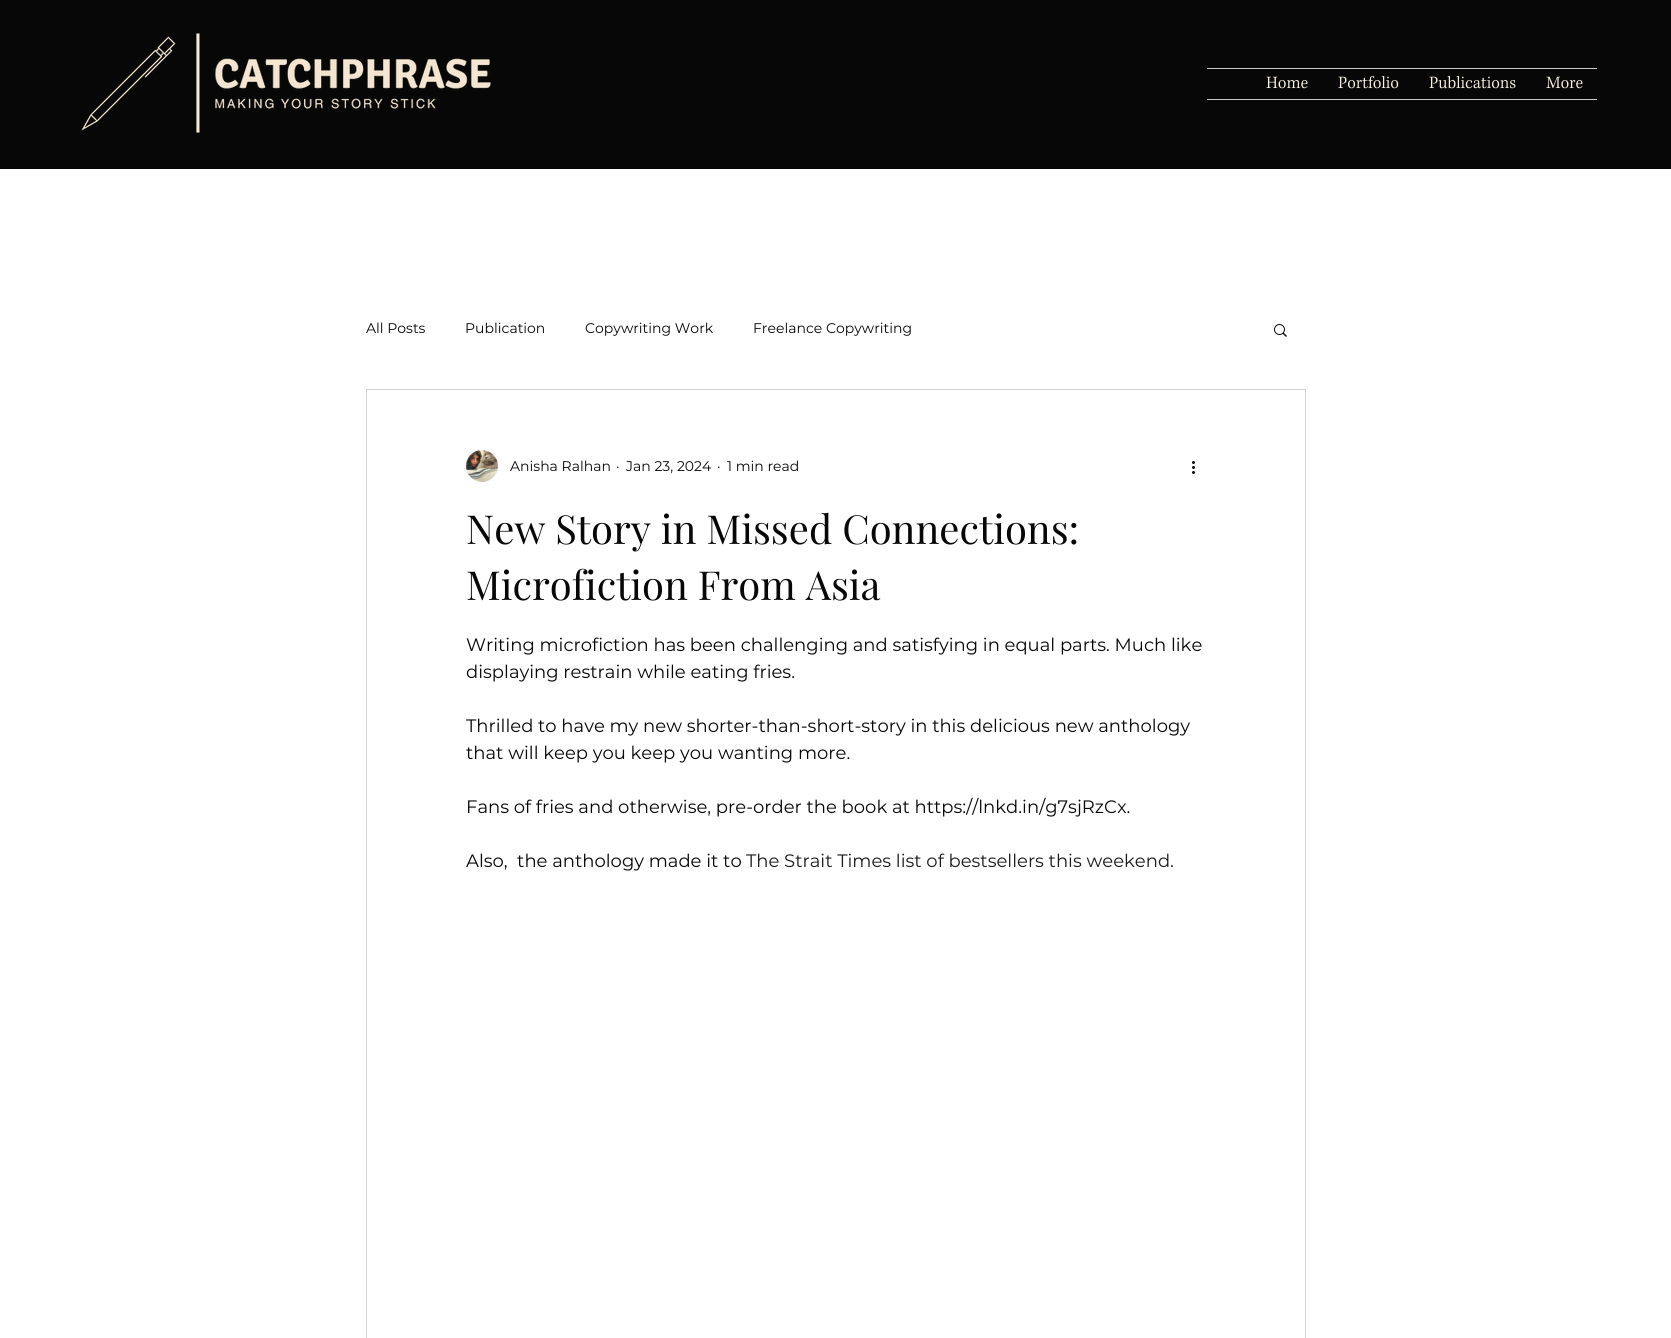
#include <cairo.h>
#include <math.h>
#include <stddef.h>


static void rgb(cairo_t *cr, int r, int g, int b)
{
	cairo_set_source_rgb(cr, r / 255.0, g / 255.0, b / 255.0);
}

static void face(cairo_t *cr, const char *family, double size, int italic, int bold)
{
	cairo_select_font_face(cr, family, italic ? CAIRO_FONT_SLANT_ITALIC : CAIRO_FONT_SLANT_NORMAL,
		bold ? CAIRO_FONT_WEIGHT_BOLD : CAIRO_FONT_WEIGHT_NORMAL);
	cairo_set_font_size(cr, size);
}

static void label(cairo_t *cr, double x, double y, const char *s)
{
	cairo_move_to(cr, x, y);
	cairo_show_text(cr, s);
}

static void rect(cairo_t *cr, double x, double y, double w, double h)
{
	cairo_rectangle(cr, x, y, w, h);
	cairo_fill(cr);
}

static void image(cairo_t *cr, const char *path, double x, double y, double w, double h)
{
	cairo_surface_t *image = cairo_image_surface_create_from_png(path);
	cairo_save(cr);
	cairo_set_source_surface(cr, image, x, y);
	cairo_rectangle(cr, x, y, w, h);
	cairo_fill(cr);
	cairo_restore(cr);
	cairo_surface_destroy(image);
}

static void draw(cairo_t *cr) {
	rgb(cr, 255, 255, 255);
	cairo_paint(cr);
	rgb(cr, 7, 7, 7);
	rect(cr, 0, 0, 1671, 169);
	image(cr, "image0.png", 81, 33, 410, 100);
	rgb(cr, 202, 202, 202);
	rect(cr, 1207, 68, 390, 1);
	rect(cr, 1207, 99, 390, 1);
	image(cr, "image1.png", 1266, 76, 42, 13);
	image(cr, "image2.png", 1338, 75, 61, 14);
	image(cr, "image3.png", 1429, 76, 87, 13);
	image(cr, "image4.png", 1546, 76, 37, 13);
	face(cr, "Montserrat", 14, 0, 0);
	rgb(cr, 7, 7, 7);
	label(cr, 366, 333, "All Posts");
	label(cr, 465, 333, "Publication");
	label(cr, 585, 333, "Copywriting Work");
	label(cr, 753, 333, "Freelance Copywriting");
	image(cr, "image5.png", 1274, 324, 13, 13);
	cairo_rectangle(cr, 366.5, 389.5, 939, 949);
	rgb(cr, 209, 209, 209);
	cairo_set_line_width(cr, 1);
	cairo_stroke(cr);
	image(cr, "image6.png", 466, 450, 32, 32);
	rgb(cr, 7, 7, 7);
	label(cr, 510, 471, "Anisha Ralhan");
	label(cr, 616, 471, "·");
	label(cr, 626, 471, "Jan 23, 2024");
	label(cr, 717, 471, "·");
	label(cr, 727, 471, "1 min read");
	image(cr, "image7.png", 1192, 461, 3, 13);
	face(cr, "Playfair Display", 40, 0, 0);
	label(cr, 466, 544, "New Story in Missed Connections:");
	label(cr, 466, 600, "Microfiction From Asia");
	face(cr, "Montserrat", 18, 0, 0);
	label(cr, 466, 651, "Writing microfiction has been challenging and satisfying in equal parts. Much like");
	label(cr, 466, 678, "displaying restrain while eating fries.");
	label(cr, 466, 732, "Thrilled to have my new shorter-than-short-story in this delicious new anthology");
	label(cr, 466, 759, "that will keep you keep you wanting more.");
	label(cr, 466, 813, "Fans of fries and otherwise, pre-order the book at https://lnkd.in/g7sjRzCx.");
	label(cr, 466, 867, "Also,  the anthology made it to");
	rgb(cr, 26, 26, 26);
	label(cr, 746, 867, "The Strait Times list of bestsellers this weekend.");
}

int main(void) {
	cairo_surface_t *surface = cairo_image_surface_create(CAIRO_FORMAT_RGB24, 1671, 1338);
	cairo_t *cr = cairo_create(surface);
	cairo_font_options_t *options = cairo_font_options_create();
	cairo_font_options_set_hint_metrics(options, CAIRO_HINT_METRICS_OFF);
	cairo_font_options_set_hint_style(options, CAIRO_HINT_STYLE_NONE);
	cairo_set_font_options(cr, options);
	cairo_set_miter_limit(cr, 4);
	draw(cr);
	cairo_surface_write_to_png(surface, "render.png");
	cairo_font_options_destroy(options);
	cairo_destroy(cr);
	cairo_surface_destroy(surface);
	return 0;
}
